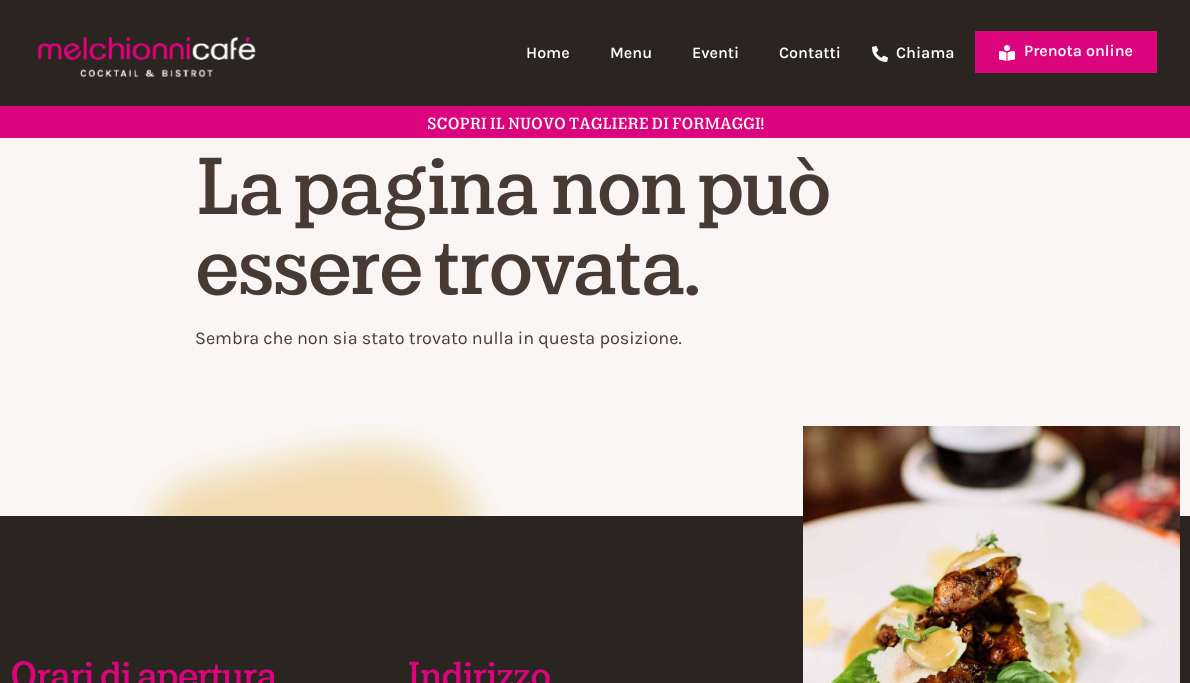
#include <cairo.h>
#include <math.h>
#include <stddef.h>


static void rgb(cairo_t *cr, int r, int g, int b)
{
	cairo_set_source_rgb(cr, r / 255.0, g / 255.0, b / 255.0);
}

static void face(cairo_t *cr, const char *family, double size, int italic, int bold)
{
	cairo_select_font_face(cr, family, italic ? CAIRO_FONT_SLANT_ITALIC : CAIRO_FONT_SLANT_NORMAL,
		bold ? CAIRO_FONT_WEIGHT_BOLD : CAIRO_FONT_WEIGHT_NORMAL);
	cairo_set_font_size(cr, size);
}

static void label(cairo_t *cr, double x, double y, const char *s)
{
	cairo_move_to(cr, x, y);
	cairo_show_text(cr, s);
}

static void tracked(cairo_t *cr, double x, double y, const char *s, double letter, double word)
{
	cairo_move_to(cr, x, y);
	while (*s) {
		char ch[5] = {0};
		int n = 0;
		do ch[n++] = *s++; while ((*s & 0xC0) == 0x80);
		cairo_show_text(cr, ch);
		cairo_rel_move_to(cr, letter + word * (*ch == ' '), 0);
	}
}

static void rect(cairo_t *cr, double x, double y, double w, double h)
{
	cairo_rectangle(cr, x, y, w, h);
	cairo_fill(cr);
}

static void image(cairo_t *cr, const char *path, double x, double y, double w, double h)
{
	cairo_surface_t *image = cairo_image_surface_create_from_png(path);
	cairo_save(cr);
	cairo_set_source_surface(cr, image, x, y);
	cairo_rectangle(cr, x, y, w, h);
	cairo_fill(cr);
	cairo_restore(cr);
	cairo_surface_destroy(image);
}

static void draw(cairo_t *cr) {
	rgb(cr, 249, 246, 245);
	cairo_paint(cr);
	rgb(cr, 43, 37, 34);
	rect(cr, 0, 0, 1190, 106);
	image(cr, "image0.png", 38, 37, 218, 40);
	face(cr, "Karla SemiBold", 16, 0, 0);
	rgb(cr, 255, 255, 255);
	label(cr, 526, 58, "Home");
	label(cr, 610, 58, "Menu");
	label(cr, 692, 58, "Eventi");
	label(cr, 779, 58, "Contatti");
	image(cr, "image1.png", 872, 46, 16, 16);
	label(cr, 896, 58, "Chiama");
	rgb(cr, 220, 4, 124);
	rect(cr, 975, 31, 182, 42);
	image(cr, "image2.png", 999, 45, 16, 16);
	rgb(cr, 255, 255, 255);
	label(cr, 1024, 56, "Prenota online");
	rgb(cr, 220, 4, 124);
	rect(cr, 0, 106, 1190, 32);
	face(cr, "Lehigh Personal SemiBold", 18, 0, 0);
	rgb(cr, 255, 255, 255);
	label(cr, 427, 129, "SCOPRI IL NUOVO TAGLIERE DI FORMAGGI!");
	face(cr, "Lehigh Personal SemiBold", 90, 0, 0);
	rgb(cr, 71, 57, 51);
	tracked(cr, 195, 214, "La pagina non può", -2, 0);
	tracked(cr, 195, 294, "essere trovata.", -2, 0);
	face(cr, "Karla", 18, 0, 0);
	label(cr, 195, 344, "Sembra che non sia stato trovato nulla in questa posizione.");
	image(cr, "image3.png", 127, 423, 376, 93);
	rgb(cr, 43, 37, 34);
	rect(cr, 0, 516, 1190, 167);
	face(cr, "Lehigh Personal SemiBold", 42, 0, 0);
	rgb(cr, 220, 4, 124);
	tracked(cr, 10, 688, "Orari di apertura", -1, 0);
	tracked(cr, 407, 688, "Indirizzo", -1, 0);
	image(cr, "image4.png", 803, 426, 377, 257);
}

int main(void) {
	cairo_surface_t *surface = cairo_image_surface_create(CAIRO_FORMAT_RGB24, 1190, 683);
	cairo_t *cr = cairo_create(surface);
	cairo_font_options_t *options = cairo_font_options_create();
	cairo_font_options_set_hint_metrics(options, CAIRO_HINT_METRICS_OFF);
	cairo_font_options_set_hint_style(options, CAIRO_HINT_STYLE_NONE);
	cairo_set_font_options(cr, options);
	cairo_set_miter_limit(cr, 4);
	draw(cr);
	cairo_surface_write_to_png(surface, "render.png");
	cairo_font_options_destroy(options);
	cairo_destroy(cr);
	cairo_surface_destroy(surface);
	return 0;
}
